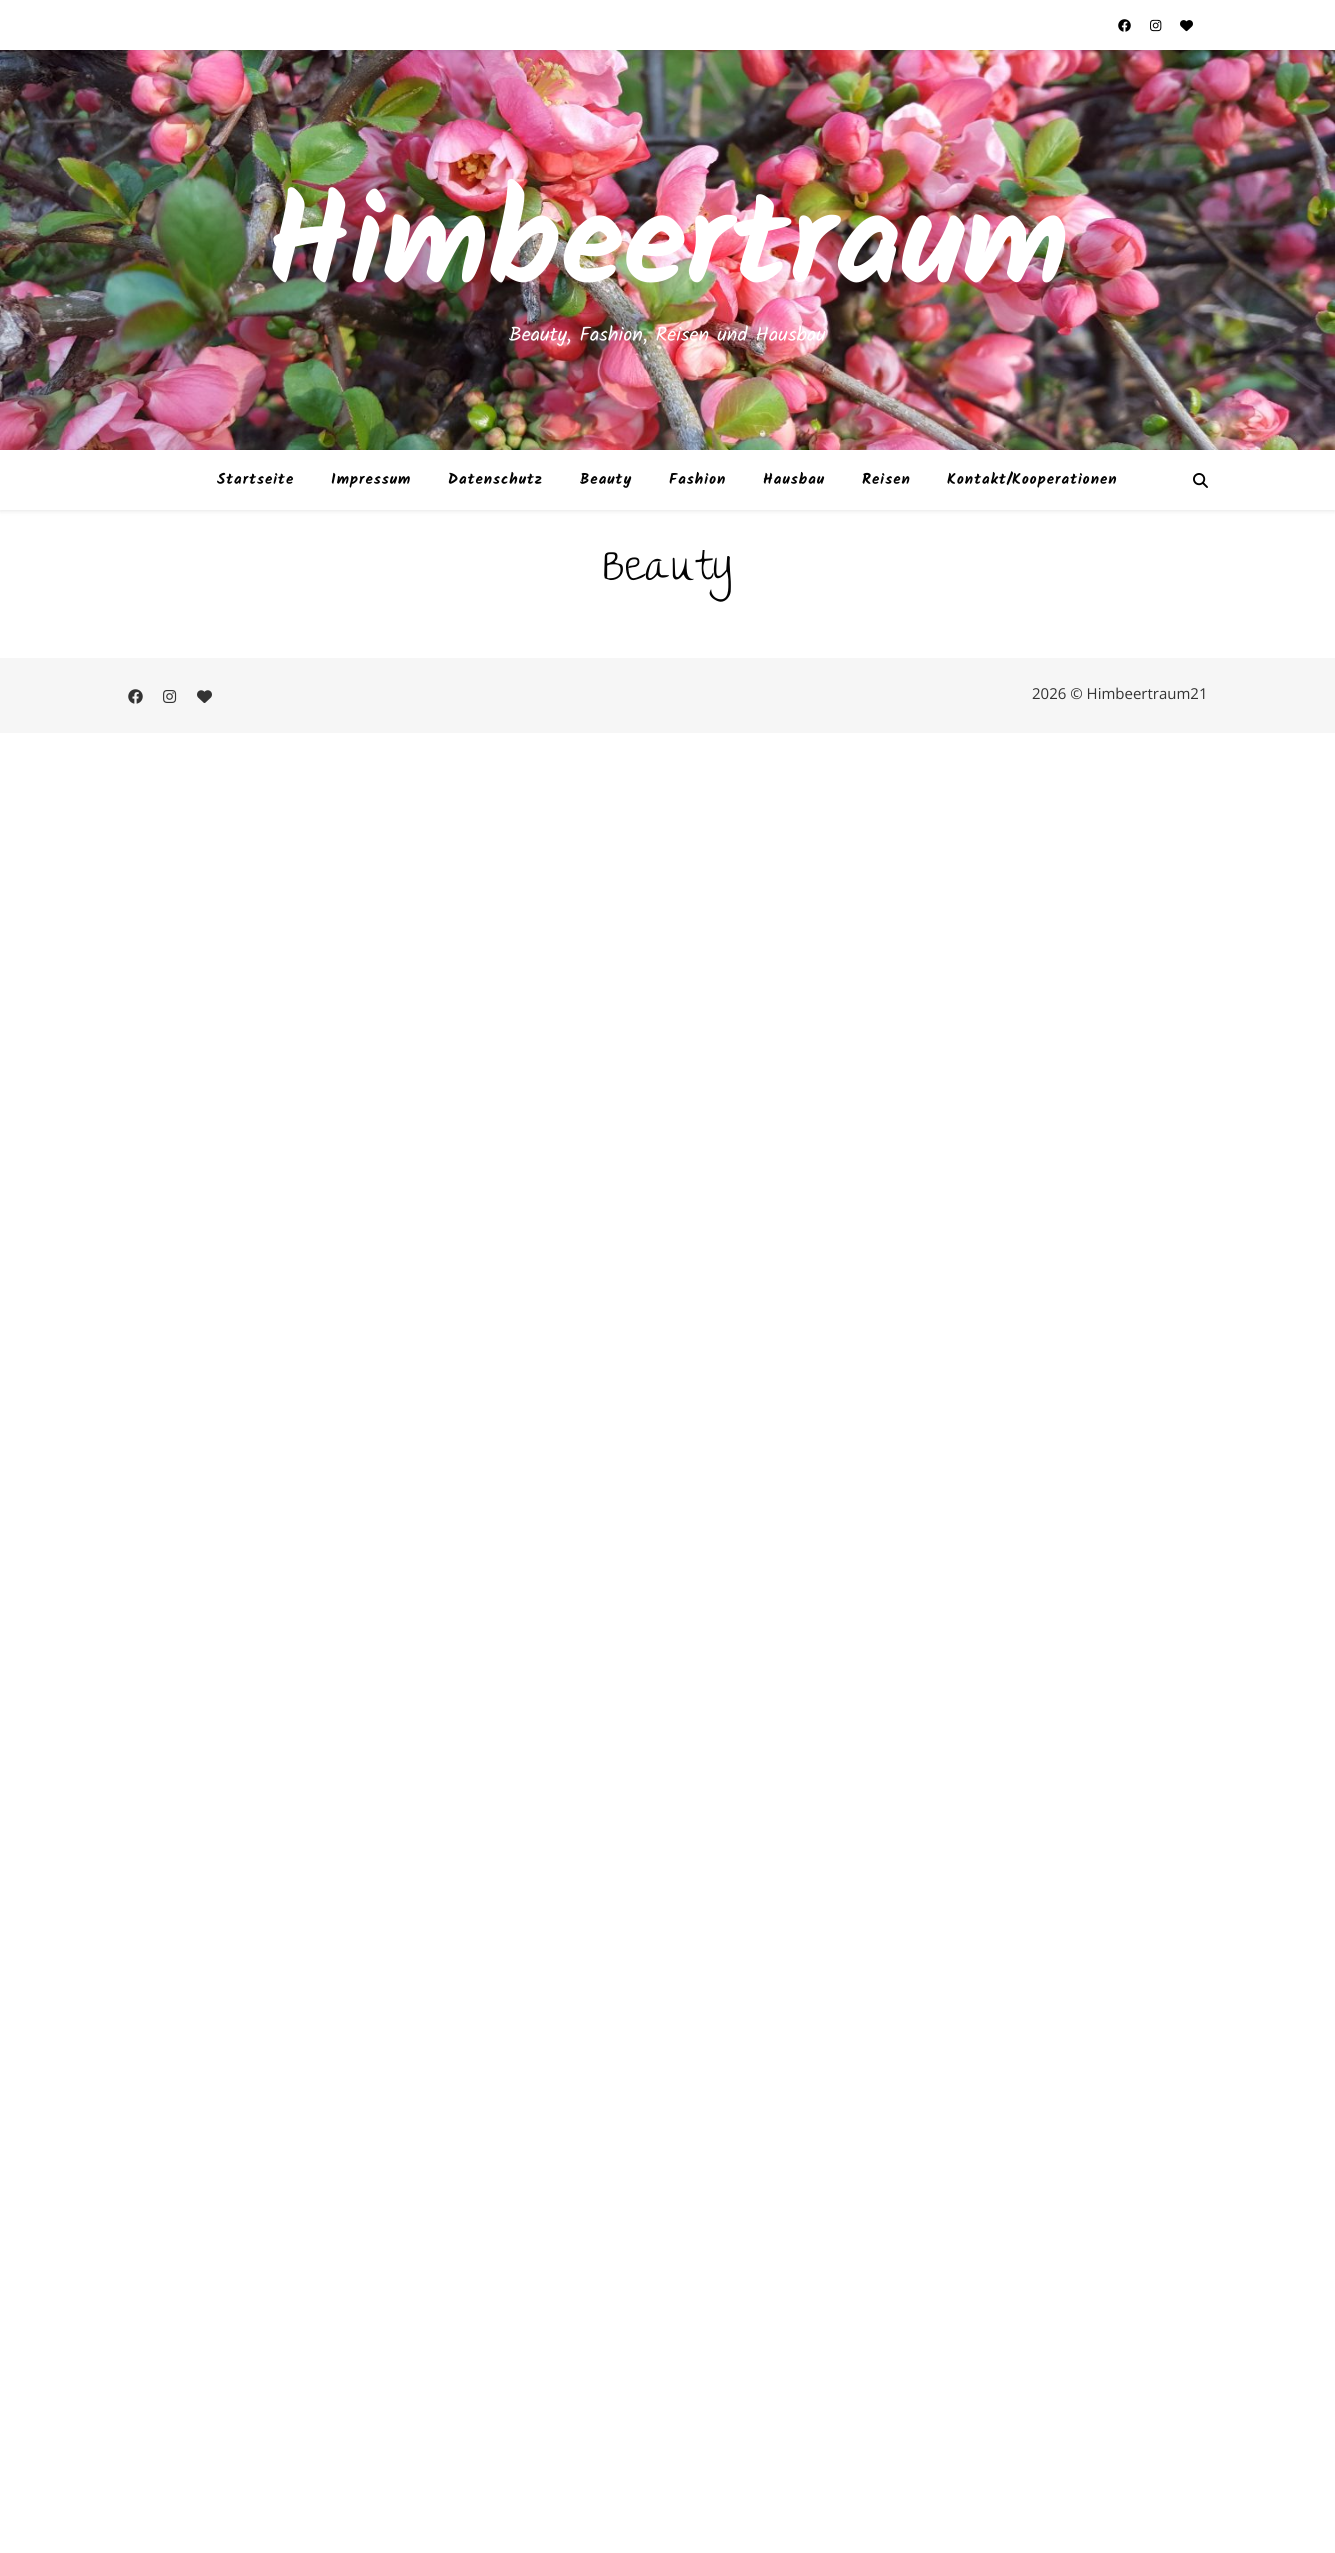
#include <cairo.h>
#include <math.h>
#include <stddef.h>


static void rgb(cairo_t *cr, int r, int g, int b)
{
	cairo_set_source_rgb(cr, r / 255.0, g / 255.0, b / 255.0);
}

static void face(cairo_t *cr, const char *family, double size, int italic, int bold)
{
	cairo_select_font_face(cr, family, italic ? CAIRO_FONT_SLANT_ITALIC : CAIRO_FONT_SLANT_NORMAL,
		bold ? CAIRO_FONT_WEIGHT_BOLD : CAIRO_FONT_WEIGHT_NORMAL);
	cairo_set_font_size(cr, size);
}

static void label(cairo_t *cr, double x, double y, const char *s)
{
	cairo_move_to(cr, x, y);
	cairo_show_text(cr, s);
}

static void tracked(cairo_t *cr, double x, double y, const char *s, double letter, double word)
{
	cairo_move_to(cr, x, y);
	while (*s) {
		char ch[5] = {0};
		int n = 0;
		do ch[n++] = *s++; while ((*s & 0xC0) == 0x80);
		cairo_show_text(cr, ch);
		cairo_rel_move_to(cr, letter + word * (*ch == ' '), 0);
	}
}

static void rect(cairo_t *cr, double x, double y, double w, double h)
{
	cairo_rectangle(cr, x, y, w, h);
	cairo_fill(cr);
}

static void rrect(cairo_t *cr, double x, double y, double w, double h, double r)
{
	cairo_new_sub_path(cr);
	cairo_arc(cr, x + w - r, y + h - r, r, 0, M_PI / 2);
	cairo_arc(cr, x + r, y + h - r, r, M_PI / 2, M_PI);
	cairo_arc(cr, x + r, y + r, r, M_PI, 1.5 * M_PI);
	cairo_arc(cr, x + w - r, y + r, r, 1.5 * M_PI, 2 * M_PI);
	cairo_close_path(cr);
}

static void soft_shadow(cairo_t *cr, double x, double y, double w, double h, double r, double blur, double alpha)
{
	cairo_push_group_with_content(cr, CAIRO_CONTENT_ALPHA);
	cairo_set_operator(cr, CAIRO_OPERATOR_SOURCE);
	for (int i = 15; i >= -15 && fmin(w, h) + blur * i / 3 > 0; i -= 2) {
		double e = blur * i / 6;
		cairo_set_source_rgba(cr, 0, 0, 0, alpha * erfc((i - 1) / 8.5) / 2);
		rrect(cr, x - e, y - e, w + 2 * e, h + 2 * e, fmax(0, fmin(r + e + blur * .6, fmin(w, h) / 2 + e)));
		cairo_fill(cr);
	}
	cairo_pattern_t *soft = cairo_pop_group(cr);
	cairo_mask(cr, soft);
	cairo_pattern_destroy(soft);
}

static void image(cairo_t *cr, const char *path, double x, double y, double w, double h)
{
	cairo_surface_t *image = cairo_image_surface_create_from_png(path);
	cairo_save(cr);
	cairo_set_source_surface(cr, image, x, y);
	cairo_rectangle(cr, x, y, w, h);
	cairo_fill(cr);
	cairo_restore(cr);
	cairo_surface_destroy(image);
}

static void draw(cairo_t *cr) {
	rgb(cr, 255, 255, 255);
	cairo_paint(cr);
	image(cr, "image0.png", 0, 50, 1335, 400);
	cairo_save(cr);
	cairo_rectangle(cr, 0, 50, 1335, 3);
	cairo_clip(cr);
	rgb(cr, 0, 0, 0);
	soft_shadow(cr, 0, 1, 1335, 50, 0, 2.5, 0.1);
	cairo_restore(cr);
	image(cr, "image1.png", 1118, 19, 13, 13);
	image(cr, "image2.png", 1150, 19, 12, 13);
	image(cr, "image3.png", 1180, 20, 13, 12);
	face(cr, "Kalam", 130, 0, 1);
	rgb(cr, 255, 255, 255);
	tracked(cr, 266, 284, "Himbeertraum", -1, 0);
	face(cr, "Kalam", 20, 0, 0);
	label(cr, 509, 341, "Beauty, Fashion, Reisen und Hausbau");
	cairo_save(cr);
	cairo_set_fill_rule(cr, CAIRO_FILL_RULE_EVEN_ODD);
	cairo_new_path(cr);
	cairo_move_to(cr, 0, 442);
	cairo_line_to(cr, 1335, 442);
	cairo_line_to(cr, 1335, 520);
	cairo_line_to(cr, 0, 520);
	cairo_close_path(cr);
	cairo_move_to(cr, 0, 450);
	cairo_line_to(cr, 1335, 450);
	cairo_line_to(cr, 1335, 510);
	cairo_line_to(cr, 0, 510);
	cairo_close_path(cr);
	cairo_clip(cr);
	rgb(cr, 0, 0, 0);
	soft_shadow(cr, 0, 451, 1335, 60, 0, 2.5, 0.1);
	cairo_restore(cr);
	face(cr, "Kalam", 15, 0, 1);
	rgb(cr, 3, 3, 3);
	tracked(cr, 217, 484, "Startseite", 1, 0);
	tracked(cr, 331, 484, "Impressum", 1, 0);
	tracked(cr, 448, 484, "Datenschutz", 1, 0);
	tracked(cr, 580, 484, "Beauty", 1, 0);
	tracked(cr, 669, 484, "Fashion", 1, 0);
	tracked(cr, 763, 484, "Hausbau", 1, 0);
	tracked(cr, 862, 484, "Reisen", 1, 0);
	tracked(cr, 947, 484, "Kontakt/Kooperationen", 1, 0);
	image(cr, "image4.png", 1193, 473, 15, 15);
	cairo_save(cr);
	cairo_rectangle(cr, 128, 550, 1080, 68);
	cairo_clip(cr);
	face(cr, "The Girl Next Door", 45, 0, 0);
	tracked(cr, 603, 580, "Beauty", 0.5, 0);
	cairo_restore(cr);
	rgb(cr, 246, 246, 246);
	rect(cr, 0, 658, 1335, 75);
	image(cr, "image5.png", 128, 689, 15, 15);
	image(cr, "image6.png", 163, 690, 14, 13);
	image(cr, "image7.png", 197, 690, 15, 13);
	face(cr, "Open Sans", 15, 0, 0);
	rgb(cr, 51, 51, 51);
	label(cr, 1032, 699, "2026 © Himbeertraum21");
}

int main(void) {
	cairo_surface_t *surface = cairo_image_surface_create(CAIRO_FORMAT_RGB24, 1335, 2553);
	cairo_t *cr = cairo_create(surface);
	cairo_font_options_t *options = cairo_font_options_create();
	cairo_font_options_set_hint_metrics(options, CAIRO_HINT_METRICS_OFF);
	cairo_font_options_set_hint_style(options, CAIRO_HINT_STYLE_NONE);
	cairo_set_font_options(cr, options);
	cairo_set_miter_limit(cr, 4);
	draw(cr);
	cairo_surface_write_to_png(surface, "render.png");
	cairo_font_options_destroy(options);
	cairo_destroy(cr);
	cairo_surface_destroy(surface);
	return 0;
}
